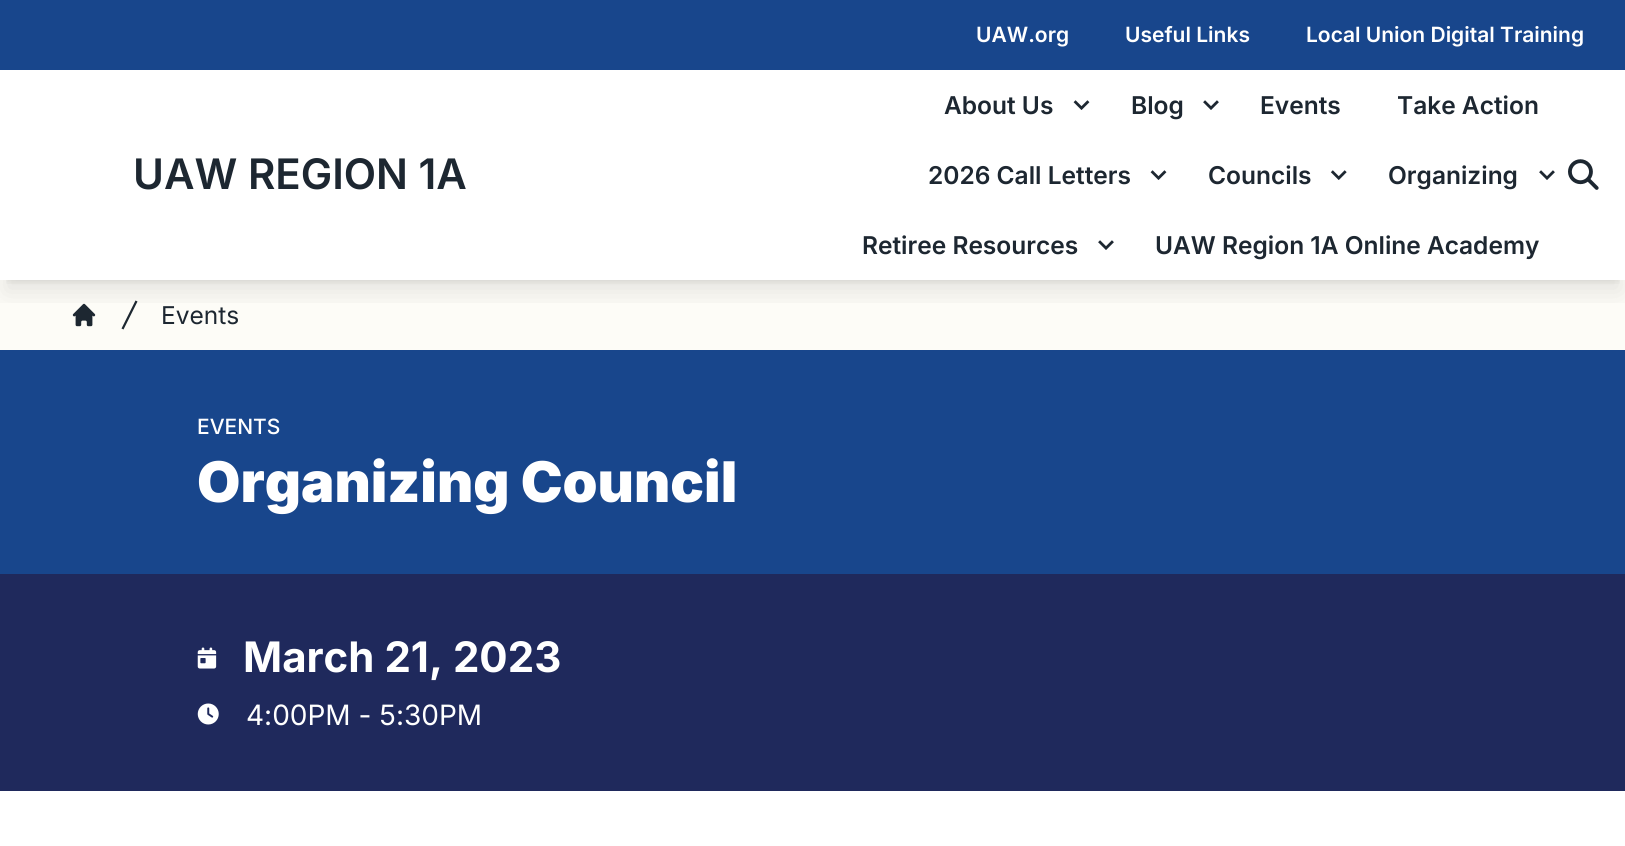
#include <cairo.h>
#include <math.h>
#include <stddef.h>


static void rgb(cairo_t *cr, int r, int g, int b)
{
	cairo_set_source_rgb(cr, r / 255.0, g / 255.0, b / 255.0);
}

static void face(cairo_t *cr, const char *family, double size, int italic, int bold)
{
	cairo_select_font_face(cr, family, italic ? CAIRO_FONT_SLANT_ITALIC : CAIRO_FONT_SLANT_NORMAL,
		bold ? CAIRO_FONT_WEIGHT_BOLD : CAIRO_FONT_WEIGHT_NORMAL);
	cairo_set_font_size(cr, size);
}

static void label(cairo_t *cr, double x, double y, const char *s)
{
	cairo_move_to(cr, x, y);
	cairo_show_text(cr, s);
}

static void rect(cairo_t *cr, double x, double y, double w, double h)
{
	cairo_rectangle(cr, x, y, w, h);
	cairo_fill(cr);
}

static void rrect(cairo_t *cr, double x, double y, double w, double h, double r)
{
	cairo_new_sub_path(cr);
	cairo_arc(cr, x + w - r, y + h - r, r, 0, M_PI / 2);
	cairo_arc(cr, x + r, y + h - r, r, M_PI / 2, M_PI);
	cairo_arc(cr, x + r, y + r, r, M_PI, 1.5 * M_PI);
	cairo_arc(cr, x + w - r, y + r, r, 1.5 * M_PI, 2 * M_PI);
	cairo_close_path(cr);
}

static void soft_shadow(cairo_t *cr, double x, double y, double w, double h, double r, double blur, double alpha)
{
	cairo_push_group_with_content(cr, CAIRO_CONTENT_ALPHA);
	cairo_set_operator(cr, CAIRO_OPERATOR_SOURCE);
	for (int i = 15; i >= -15 && fmin(w, h) + blur * i / 3 > 0; i -= 2) {
		double e = blur * i / 6;
		cairo_set_source_rgba(cr, 0, 0, 0, alpha * erfc((i - 1) / 8.5) / 2);
		rrect(cr, x - e, y - e, w + 2 * e, h + 2 * e, fmax(0, fmin(r + e + blur * .6, fmin(w, h) / 2 + e)));
		cairo_fill(cr);
	}
	cairo_pattern_t *soft = cairo_pop_group(cr);
	cairo_mask(cr, soft);
	cairo_pattern_destroy(soft);
}

static void image(cairo_t *cr, const char *path, double x, double y, double w, double h)
{
	cairo_surface_t *image = cairo_image_surface_create_from_png(path);
	cairo_save(cr);
	cairo_set_source_surface(cr, image, x, y);
	cairo_rectangle(cr, x, y, w, h);
	cairo_fill(cr);
	cairo_restore(cr);
	cairo_surface_destroy(image);
}

static void draw(cairo_t *cr) {
	rgb(cr, 255, 255, 255);
	cairo_paint(cr);
	rgb(cr, 24, 70, 140);
	rect(cr, 0, 0, 1625, 70);
	face(cr, "Inter SemiBold", 21, 0, 0);
	rgb(cr, 255, 255, 255);
	label(cr, 976, 42, "UAW.org");
	label(cr, 1125, 42, "Useful Links");
	label(cr, 1306, 42, "Local Union Digital Training");
	rgb(cr, 253, 252, 247);
	rect(cr, 0, 280, 1625, 70);
	cairo_save(cr);
	cairo_rectangle(cr, 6, 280, 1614, 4);
	cairo_clip(cr);
	rgb(cr, 0, 0, 0);
	soft_shadow(cr, 7, 84, 1612, 196, 0, 5, 0.1);
	cairo_restore(cr);
	image(cr, "image4.png", 72, 303, 24, 24);
	rgb(cr, 29, 39, 49);
	cairo_new_path(cr);
	cairo_move_to(cr, 121.5, 328.5);
	cairo_line_to(cr, 135.5, 300.5);
	cairo_line_to(cr, 137.5, 301.5);
	cairo_line_to(cr, 123.5, 329.5);
	cairo_close_path(cr);
	cairo_fill(cr);
	cairo_save(cr);
	cairo_rectangle(cr, 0, 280, 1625, 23);
	cairo_clip(cr);
	rgb(cr, 0, 0, 0);
	soft_shadow(cr, 5, 93, 1616, 199, 0, 13, 0.1);
	cairo_restore(cr);
	face(cr, "Inter SemiBold", 42, 0, 0);
	label(cr, 133, 189, "UAW REGION 1A");
	face(cr, "Inter SemiBold", 24.5, 0, 0);
	label(cr, 944, 114, "About Us");
	image(cr, "image0.png", 1073, 100, 17, 10);
	label(cr, 1131, 114, "Blog");
	image(cr, "image1.png", 1203, 100, 16, 10);
	label(cr, 1260, 114, "Events");
	label(cr, 1397, 114, "Take Action");
	label(cr, 928, 184, "2026 Call Letters");
	image(cr, "image0.png", 1150, 170, 17, 10);
	label(cr, 1208, 184, "Councils");
	image(cr, "image2.png", 1330, 170, 17, 10);
	label(cr, 1388, 184, "Organizing");
	image(cr, "image1.png", 1539, 170, 16, 10);
	label(cr, 862, 254, "Retiree Resources");
	image(cr, "image1.png", 1098, 240, 16, 10);
	label(cr, 1155, 254, "UAW Region 1A Online Academy");
	image(cr, "image3.png", 1568, 159, 31, 31);
	face(cr, "Inter", 24.5, 0, 0);
	label(cr, 161, 324, "Events");
	rgb(cr, 24, 70, 140);
	rect(cr, 0, 350, 1625, 224);
	face(cr, "Inter Medium", 21, 0, 0);
	rgb(cr, 255, 255, 255);
	label(cr, 197, 434, "EVENTS");
	face(cr, "Inter Black", 56, 0, 0);
	label(cr, 197, 502, "Organizing Council");
	rgb(cr, 31, 41, 92);
	rect(cr, 0, 574, 1625, 217);
	image(cr, "image5.png", 197, 647, 20, 22);
	face(cr, "Inter", 42, 0, 1);
	rgb(cr, 255, 255, 255);
	label(cr, 243, 672, "March 21, 2023");
	image(cr, "image6.png", 197, 703, 22, 22);
	face(cr, "Inter", 28, 0, 0);
	label(cr, 246, 725, "4:00PM - 5:30PM");
}

int main(void) {
	cairo_surface_t *surface = cairo_image_surface_create(CAIRO_FORMAT_RGB24, 1625, 846);
	cairo_t *cr = cairo_create(surface);
	cairo_font_options_t *options = cairo_font_options_create();
	cairo_font_options_set_hint_metrics(options, CAIRO_HINT_METRICS_OFF);
	cairo_font_options_set_hint_style(options, CAIRO_HINT_STYLE_NONE);
	cairo_set_font_options(cr, options);
	cairo_set_miter_limit(cr, 4);
	draw(cr);
	cairo_surface_write_to_png(surface, "render.png");
	cairo_font_options_destroy(options);
	cairo_destroy(cr);
	cairo_surface_destroy(surface);
	return 0;
}
